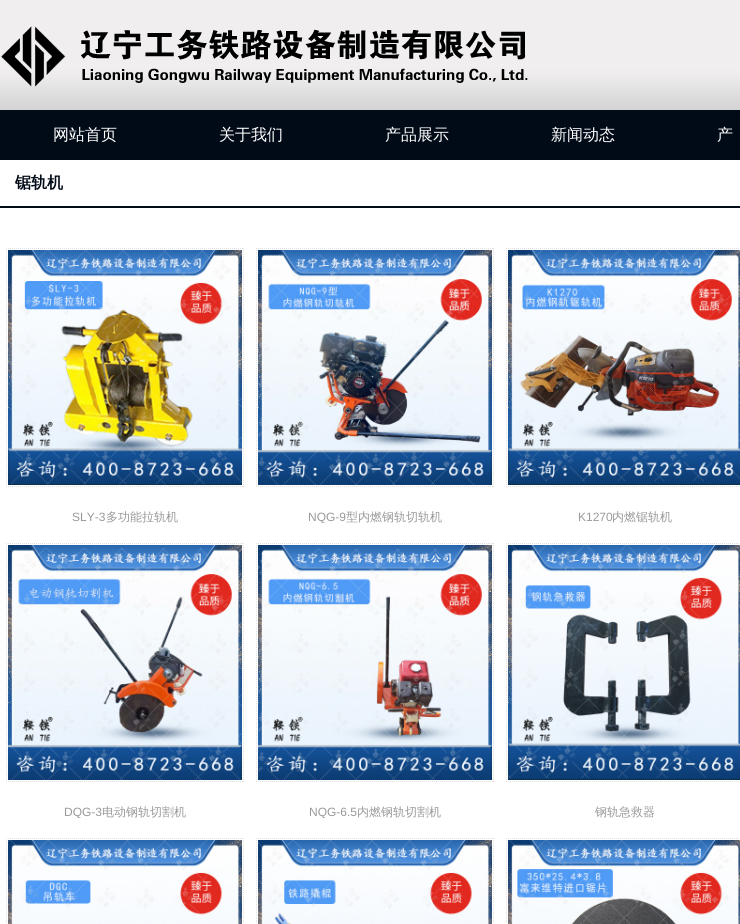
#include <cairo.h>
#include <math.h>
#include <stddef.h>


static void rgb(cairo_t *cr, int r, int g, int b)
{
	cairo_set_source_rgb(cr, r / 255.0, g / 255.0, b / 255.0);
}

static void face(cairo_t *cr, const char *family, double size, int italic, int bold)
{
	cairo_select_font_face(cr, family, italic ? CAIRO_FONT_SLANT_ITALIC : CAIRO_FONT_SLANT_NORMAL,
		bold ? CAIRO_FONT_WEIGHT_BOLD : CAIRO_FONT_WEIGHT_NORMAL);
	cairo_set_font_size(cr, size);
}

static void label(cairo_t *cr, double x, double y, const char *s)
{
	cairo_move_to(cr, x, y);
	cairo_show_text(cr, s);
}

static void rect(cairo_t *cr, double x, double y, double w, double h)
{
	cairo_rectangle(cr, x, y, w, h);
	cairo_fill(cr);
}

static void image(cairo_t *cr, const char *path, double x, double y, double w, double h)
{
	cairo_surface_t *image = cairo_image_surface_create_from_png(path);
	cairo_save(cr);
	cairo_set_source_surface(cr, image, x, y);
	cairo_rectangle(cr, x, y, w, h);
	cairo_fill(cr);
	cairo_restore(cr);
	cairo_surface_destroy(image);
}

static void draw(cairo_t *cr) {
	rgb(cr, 255, 255, 255);
	cairo_paint(cr);
	image(cr, "image0.png", 0, 0, 740, 110);
	image(cr, "image1.png", 1, 26, 527, 61);
	rgb(cr, 1, 11, 23);
	rect(cr, 0, 110, 740, 50);
	face(cr, "WenQuanYi Zen Hei Medium", 16, 0, 0);
	rgb(cr, 255, 255, 255);
	label(cr, 53, 140, "网站首页");
	label(cr, 219, 140, "关于我们");
	label(cr, 385, 140, "产品展示");
	label(cr, 551, 140, "新闻动态");
	label(cr, 717, 140, "产");
	rgb(cr, 1, 11, 23);
	rect(cr, 0, 206, 740, 2);
	face(cr, "WenQuanYi Zen Hei", 16, 0, 1);
	label(cr, 15, 188, "锯轨机");
	cairo_new_path(cr);
	cairo_move_to(cr, 6, 248.5);
	cairo_line_to(cr, 244, 248.5);
	rgb(cr, 223, 223, 223);
	cairo_set_line_width(cr, 1);
	cairo_set_dash(cr, (double[]){1, 1}, 2, 0);
	cairo_stroke(cr);
	cairo_new_path(cr);
	cairo_move_to(cr, 6, 486.5);
	cairo_line_to(cr, 244, 486.5);
	cairo_stroke(cr);
	cairo_new_path(cr);
	cairo_move_to(cr, 6.5, 248);
	cairo_line_to(cr, 6.5, 487);
	cairo_stroke(cr);
	image(cr, "image2.png", 8, 250, 234, 235);
	cairo_new_path(cr);
	cairo_move_to(cr, 243.5, 248);
	cairo_line_to(cr, 243.5, 487);
	cairo_stroke(cr);
	face(cr, "Liberation Sans", 12, 0, 0);
	rgb(cr, 153, 153, 153);
	label(cr, 72, 521, "SLY-3");
	face(cr, "WenQuanYi Zen Hei Medium", 12, 0, 0);
	label(cr, 106, 521, "多功能拉轨机");
	cairo_new_path(cr);
	cairo_move_to(cr, 256, 248.5);
	cairo_line_to(cr, 494, 248.5);
	rgb(cr, 223, 223, 223);
	cairo_stroke(cr);
	cairo_new_path(cr);
	cairo_move_to(cr, 256, 486.5);
	cairo_line_to(cr, 494, 486.5);
	cairo_stroke(cr);
	cairo_new_path(cr);
	cairo_move_to(cr, 256.5, 248);
	cairo_line_to(cr, 256.5, 487);
	cairo_stroke(cr);
	image(cr, "image3.png", 258, 250, 234, 235);
	cairo_new_path(cr);
	cairo_move_to(cr, 493.5, 248);
	cairo_line_to(cr, 493.5, 487);
	cairo_stroke(cr);
	cairo_save(cr);
	cairo_rectangle(cr, 256, 248, 238, 275);
	cairo_clip(cr);
	face(cr, "Liberation Sans", 12, 0, 0);
	rgb(cr, 153, 153, 153);
	label(cr, 308, 521, "NQG-9");
	cairo_restore(cr);
	rgb(cr, 153, 153, 153);
	label(cr, 346, 521, "型内燃钢轨切轨机");
	cairo_new_path(cr);
	cairo_move_to(cr, 506, 248.5);
	cairo_line_to(cr, 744, 248.5);
	rgb(cr, 223, 223, 223);
	cairo_stroke(cr);
	cairo_new_path(cr);
	cairo_move_to(cr, 506, 486.5);
	cairo_line_to(cr, 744, 486.5);
	cairo_stroke(cr);
	cairo_new_path(cr);
	cairo_move_to(cr, 506.5, 248);
	cairo_line_to(cr, 506.5, 487);
	cairo_stroke(cr);
	image(cr, "image4.png", 508, 250, 232, 235);
	face(cr, "Liberation Sans", 12, 0, 0);
	rgb(cr, 153, 153, 153);
	label(cr, 578, 521, "K1270");
	face(cr, "WenQuanYi Zen Hei Medium", 12, 0, 0);
	label(cr, 612, 521, "内燃锯轨机");
	cairo_new_path(cr);
	cairo_move_to(cr, 6, 543.5);
	cairo_line_to(cr, 244, 543.5);
	rgb(cr, 223, 223, 223);
	cairo_stroke(cr);
	cairo_new_path(cr);
	cairo_move_to(cr, 6, 781.5);
	cairo_line_to(cr, 244, 781.5);
	cairo_stroke(cr);
	cairo_new_path(cr);
	cairo_move_to(cr, 6.5, 543);
	cairo_line_to(cr, 6.5, 782);
	cairo_stroke(cr);
	image(cr, "image5.png", 8, 545, 234, 235);
	cairo_new_path(cr);
	cairo_move_to(cr, 243.5, 543);
	cairo_line_to(cr, 243.5, 782);
	cairo_stroke(cr);
	cairo_save(cr);
	cairo_rectangle(cr, 6, 543, 238, 275);
	cairo_clip(cr);
	face(cr, "Liberation Sans", 12, 0, 0);
	rgb(cr, 153, 153, 153);
	label(cr, 64, 816, "DQG-3");
	cairo_restore(cr);
	rgb(cr, 153, 153, 153);
	label(cr, 102, 816, "电动钢轨切割机");
	cairo_new_path(cr);
	cairo_move_to(cr, 256, 543.5);
	cairo_line_to(cr, 494, 543.5);
	rgb(cr, 223, 223, 223);
	cairo_stroke(cr);
	cairo_new_path(cr);
	cairo_move_to(cr, 256, 781.5);
	cairo_line_to(cr, 494, 781.5);
	cairo_stroke(cr);
	cairo_new_path(cr);
	cairo_move_to(cr, 256.5, 543);
	cairo_line_to(cr, 256.5, 782);
	cairo_stroke(cr);
	image(cr, "image6.png", 258, 545, 234, 235);
	cairo_new_path(cr);
	cairo_move_to(cr, 493.5, 543);
	cairo_line_to(cr, 493.5, 782);
	cairo_stroke(cr);
	cairo_save(cr);
	cairo_rectangle(cr, 256, 543, 238, 275);
	cairo_clip(cr);
	face(cr, "Liberation Sans", 12, 0, 0);
	rgb(cr, 153, 153, 153);
	label(cr, 309, 816, "NQG-6.5");
	cairo_restore(cr);
	rgb(cr, 153, 153, 153);
	label(cr, 357, 816, "内燃钢轨切割机");
	cairo_new_path(cr);
	cairo_move_to(cr, 506, 543.5);
	cairo_line_to(cr, 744, 543.5);
	rgb(cr, 223, 223, 223);
	cairo_stroke(cr);
	cairo_new_path(cr);
	cairo_move_to(cr, 506, 781.5);
	cairo_line_to(cr, 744, 781.5);
	cairo_stroke(cr);
	cairo_new_path(cr);
	cairo_move_to(cr, 506.5, 543);
	cairo_line_to(cr, 506.5, 782);
	cairo_stroke(cr);
	image(cr, "image7.png", 508, 545, 232, 235);
	rgb(cr, 153, 153, 153);
	label(cr, 595, 816, "钢轨急救器");
	cairo_new_path(cr);
	cairo_move_to(cr, 6, 838.5);
	cairo_line_to(cr, 244, 838.5);
	rgb(cr, 223, 223, 223);
	cairo_stroke(cr);
	cairo_new_path(cr);
	cairo_move_to(cr, 6.5, 838);
	cairo_line_to(cr, 6.5, 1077);
	cairo_stroke(cr);
	image(cr, "image8.png", 8, 840, 234, 84);
	cairo_new_path(cr);
	cairo_move_to(cr, 243.5, 838);
	cairo_line_to(cr, 243.5, 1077);
	cairo_stroke(cr);
	cairo_new_path(cr);
	cairo_move_to(cr, 256, 838.5);
	cairo_line_to(cr, 494, 838.5);
	cairo_stroke(cr);
	cairo_new_path(cr);
	cairo_move_to(cr, 256.5, 838);
	cairo_line_to(cr, 256.5, 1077);
	cairo_stroke(cr);
	image(cr, "image9.png", 258, 840, 234, 84);
	cairo_new_path(cr);
	cairo_move_to(cr, 493.5, 838);
	cairo_line_to(cr, 493.5, 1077);
	cairo_stroke(cr);
	cairo_new_path(cr);
	cairo_move_to(cr, 506, 838.5);
	cairo_line_to(cr, 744, 838.5);
	cairo_stroke(cr);
	cairo_new_path(cr);
	cairo_move_to(cr, 506.5, 838);
	cairo_line_to(cr, 506.5, 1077);
	cairo_stroke(cr);
	image(cr, "image10.png", 508, 840, 232, 84);
}

int main(void) {
	cairo_surface_t *surface = cairo_image_surface_create(CAIRO_FORMAT_RGB24, 740, 924);
	cairo_t *cr = cairo_create(surface);
	cairo_font_options_t *options = cairo_font_options_create();
	cairo_font_options_set_hint_metrics(options, CAIRO_HINT_METRICS_OFF);
	cairo_font_options_set_hint_style(options, CAIRO_HINT_STYLE_NONE);
	cairo_set_font_options(cr, options);
	cairo_set_miter_limit(cr, 4);
	draw(cr);
	cairo_surface_write_to_png(surface, "render.png");
	cairo_font_options_destroy(options);
	cairo_destroy(cr);
	cairo_surface_destroy(surface);
	return 0;
}
